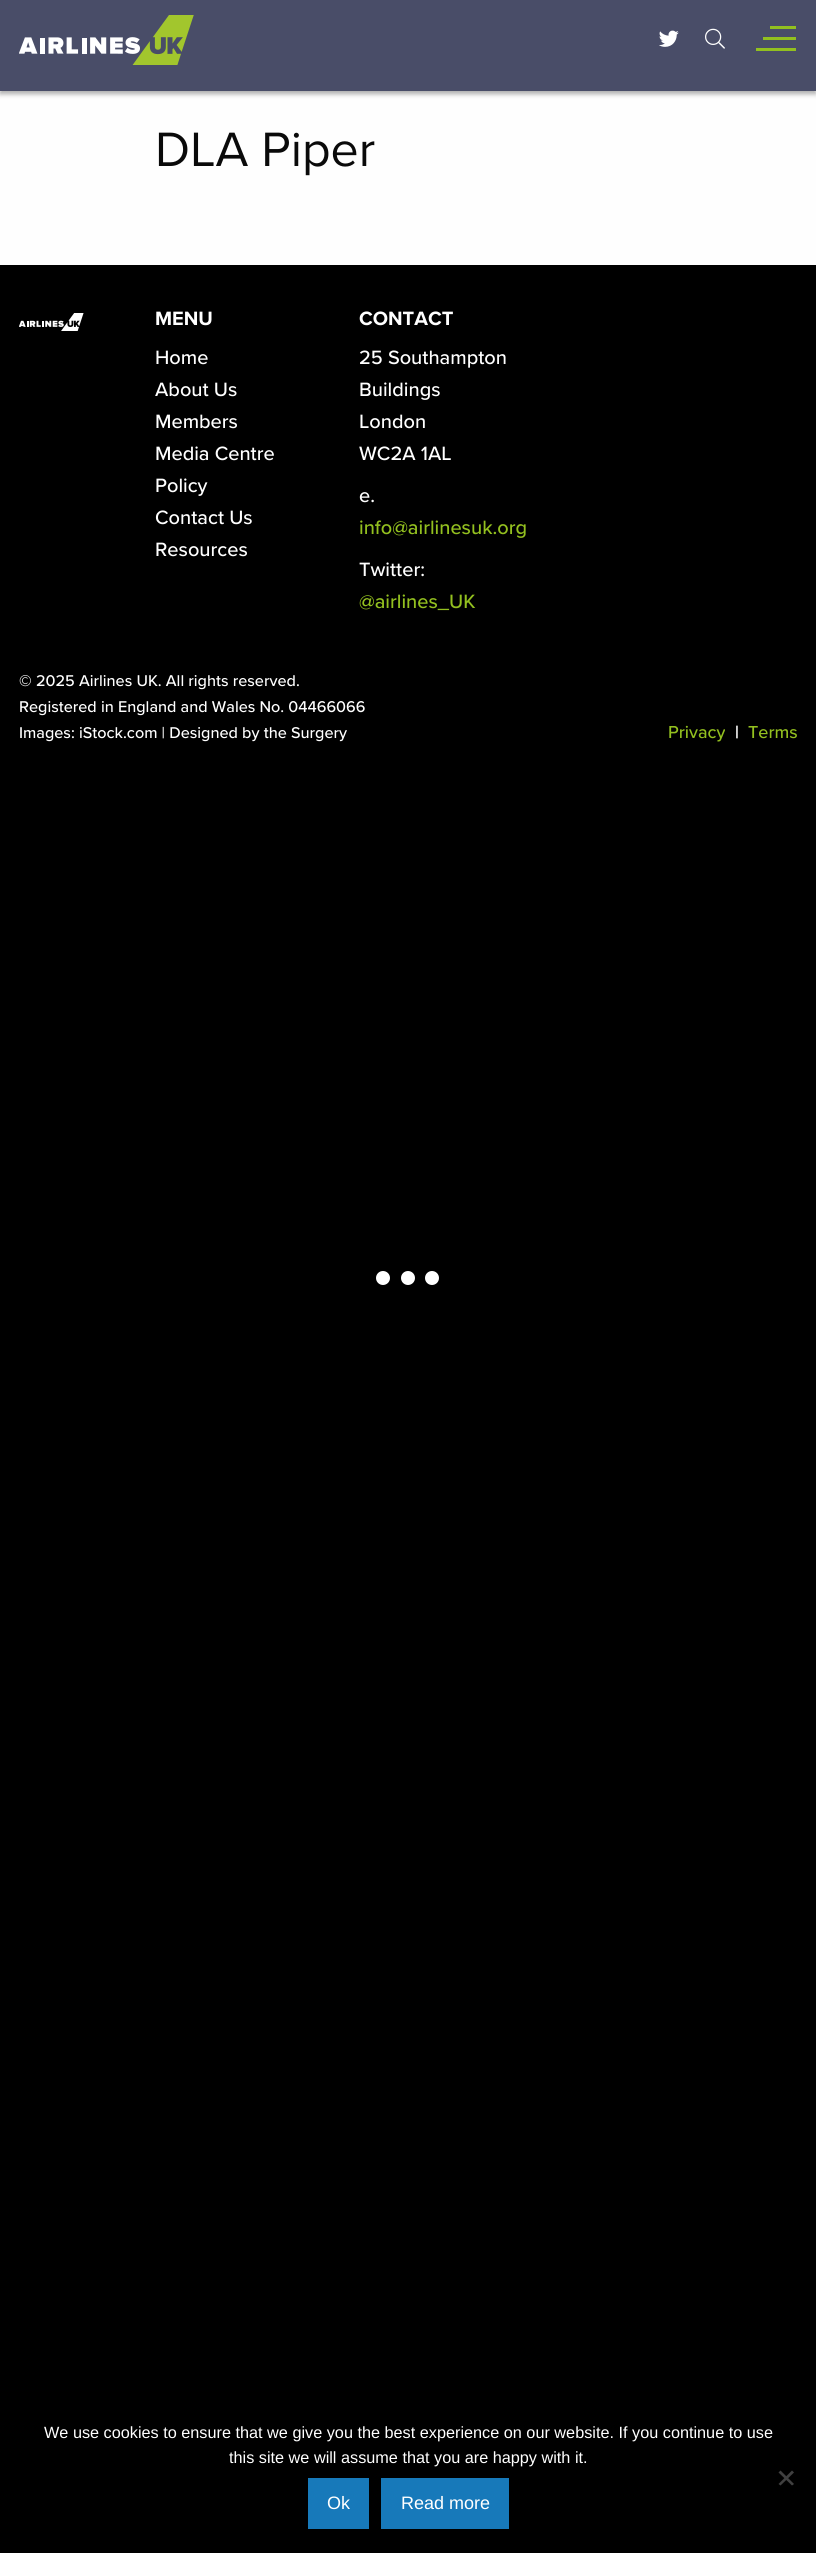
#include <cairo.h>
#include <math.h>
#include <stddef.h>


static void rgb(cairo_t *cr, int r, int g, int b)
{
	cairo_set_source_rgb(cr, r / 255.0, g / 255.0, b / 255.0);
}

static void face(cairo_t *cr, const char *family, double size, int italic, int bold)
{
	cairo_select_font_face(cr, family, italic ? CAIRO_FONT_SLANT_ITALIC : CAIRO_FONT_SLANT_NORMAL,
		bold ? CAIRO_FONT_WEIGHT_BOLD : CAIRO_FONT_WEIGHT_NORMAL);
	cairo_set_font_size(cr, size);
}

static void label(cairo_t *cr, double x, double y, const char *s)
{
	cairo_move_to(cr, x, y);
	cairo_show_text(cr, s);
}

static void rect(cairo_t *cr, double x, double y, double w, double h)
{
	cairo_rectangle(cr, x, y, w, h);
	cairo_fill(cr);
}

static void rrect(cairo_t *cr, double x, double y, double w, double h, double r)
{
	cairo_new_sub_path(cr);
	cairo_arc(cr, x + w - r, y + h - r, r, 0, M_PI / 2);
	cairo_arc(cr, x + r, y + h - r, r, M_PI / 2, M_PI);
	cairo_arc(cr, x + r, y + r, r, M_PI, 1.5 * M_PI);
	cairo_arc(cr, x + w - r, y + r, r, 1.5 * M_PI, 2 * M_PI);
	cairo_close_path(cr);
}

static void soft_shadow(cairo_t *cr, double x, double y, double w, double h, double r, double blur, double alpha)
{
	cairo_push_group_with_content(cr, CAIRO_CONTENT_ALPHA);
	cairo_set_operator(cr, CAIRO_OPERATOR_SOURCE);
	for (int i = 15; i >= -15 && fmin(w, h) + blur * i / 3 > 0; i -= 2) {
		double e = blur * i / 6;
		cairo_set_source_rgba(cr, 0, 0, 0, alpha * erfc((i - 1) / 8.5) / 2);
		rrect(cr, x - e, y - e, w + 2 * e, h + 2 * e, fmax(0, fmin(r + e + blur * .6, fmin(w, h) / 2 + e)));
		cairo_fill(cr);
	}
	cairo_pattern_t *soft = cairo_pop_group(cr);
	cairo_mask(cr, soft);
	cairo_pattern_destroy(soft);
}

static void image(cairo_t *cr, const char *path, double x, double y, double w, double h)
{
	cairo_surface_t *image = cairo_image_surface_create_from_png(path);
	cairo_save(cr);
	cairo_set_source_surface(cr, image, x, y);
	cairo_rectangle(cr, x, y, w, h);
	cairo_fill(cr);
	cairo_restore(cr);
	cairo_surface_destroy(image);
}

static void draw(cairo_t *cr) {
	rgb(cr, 0, 0, 0);
	cairo_paint(cr);
	rgb(cr, 254, 254, 254);
	rect(cr, 0, 91, 816, 174);
	rgb(cr, 0, 0, 0);
	soft_shadow(cr, 0, 3, 816, 91, 0, 2.5, 0.33);
	rgb(cr, 73, 77, 104);
	rect(cr, 0, 0, 816, 91);
	image(cr, "image0.png", 19, 15, 175, 50);
	image(cr, "image1.png", 659, 30, 20, 17);
	image(cr, "image2.png", 705, 28, 20, 21);
	rgb(cr, 146, 192, 31);
	rect(cr, 770, 26, 26, 3);
	rect(cr, 763, 37, 33, 3);
	rect(cr, 756, 48, 40, 3);
	face(cr, "Proxima Nova", 50, 0, 0);
	rgb(cr, 10, 10, 10);
	label(cr, 155, 166, "DLA Piper");
	image(cr, "image3.png", 19, 313, 65, 18);
	face(cr, "Proxima Nova", 20, 0, 1);
	rgb(cr, 255, 255, 255);
	label(cr, 155, 325, "MENU");
	face(cr, "Proxima Nova Medium", 20, 0, 0);
	label(cr, 155, 364, "Home");
	label(cr, 155, 396, "About Us");
	label(cr, 155, 428, "Members");
	label(cr, 155, 460, "Media Centre");
	label(cr, 155, 492, "Policy");
	label(cr, 155, 524, "Contact Us");
	label(cr, 155, 556, "Resources");
	face(cr, "Proxima Nova", 20, 0, 1);
	label(cr, 359, 325, "CONTACT");
	face(cr, "Proxima Nova Medium", 20, 0, 0);
	label(cr, 359, 364, "25 Southampton");
	label(cr, 359, 396, "Buildings");
	label(cr, 359, 428, "London");
	label(cr, 359, 460, "WC2A 1AL");
	label(cr, 359, 502, "e.");
	rgb(cr, 147, 192, 31);
	label(cr, 359, 534, "info@airlinesuk.org");
	rgb(cr, 255, 255, 255);
	label(cr, 359, 576, "Twitter:");
	rgb(cr, 147, 192, 31);
	label(cr, 359, 608, "@airlines_UK");
	face(cr, "Proxima Nova", 16.2, 0, 1);
	rgb(cr, 255, 255, 255);
	label(cr, 19, 686, "©");
	face(cr, "Proxima Nova Medium", 16.2, 0, 0);
	label(cr, 36, 686, "2025 Airlines UK. All rights reserved.");
	label(cr, 19, 712, "Registered in England and Wales No. 04466066");
	label(cr, 19, 738, "Images: iStock.com | Designed by the Surgery");
	face(cr, "Proxima Nova Medium", 18, 0, 0);
	rgb(cr, 147, 192, 31);
	label(cr, 668, 738, "Privacy");
	face(cr, "Proxima Nova", 18, 0, 1);
	rgb(cr, 255, 255, 255);
	label(cr, 735, 738, "|");
	face(cr, "Proxima Nova Medium", 18, 0, 0);
	rgb(cr, 147, 192, 31);
	label(cr, 748, 738, "Terms");
	rgb(cr, 255, 255, 255);
	cairo_new_path(cr);
	cairo_arc(cr, 383, 1278, 7, 0, 2 * M_PI);
	cairo_fill(cr);
	cairo_arc(cr, 408, 1278, 7, 0, 2 * M_PI);
	cairo_fill(cr);
	cairo_arc(cr, 432, 1278, 7, 0, 2 * M_PI);
	cairo_fill(cr);
	face(cr, "Liberation Sans", 16.25, 0, 0);
	label(cr, 44, 2438, "We use cookies to ensure that we give you the best experience on our website. If you continue to use");
	label(cr, 229, 2463, "this site we will assume that you are happy with it.");
	rgb(cr, 64, 64, 64);
	cairo_new_path(cr);
	cairo_move_to(cr, 792, 2470.5);
	cairo_line_to(cr, 794, 2472.5);
	cairo_line_to(cr, 780.5, 2485.5);
	cairo_line_to(cr, 778.5, 2484);
	cairo_close_path(cr);
	cairo_fill(cr);
	cairo_new_path(cr);
	cairo_move_to(cr, 778.5, 2472.5);
	cairo_line_to(cr, 780.5, 2470.5);
	cairo_line_to(cr, 794, 2484);
	cairo_line_to(cr, 792, 2485.5);
	cairo_close_path(cr);
	cairo_fill(cr);
	rgb(cr, 23, 121, 186);
	rect(cr, 308, 2478, 61, 51);
	face(cr, "Liberation Sans", 18, 0, 0);
	rgb(cr, 255, 255, 255);
	label(cr, 327, 2509, "Ok");
	rgb(cr, 23, 121, 186);
	rect(cr, 381, 2478, 128, 51);
	rgb(cr, 255, 255, 255);
	label(cr, 401, 2509, "Read more");
}

int main(void) {
	cairo_surface_t *surface = cairo_image_surface_create(CAIRO_FORMAT_RGB24, 816, 2553);
	cairo_t *cr = cairo_create(surface);
	cairo_font_options_t *options = cairo_font_options_create();
	cairo_font_options_set_hint_metrics(options, CAIRO_HINT_METRICS_OFF);
	cairo_font_options_set_hint_style(options, CAIRO_HINT_STYLE_NONE);
	cairo_set_font_options(cr, options);
	cairo_set_miter_limit(cr, 4);
	draw(cr);
	cairo_surface_write_to_png(surface, "render.png");
	cairo_font_options_destroy(options);
	cairo_destroy(cr);
	cairo_surface_destroy(surface);
	return 0;
}
